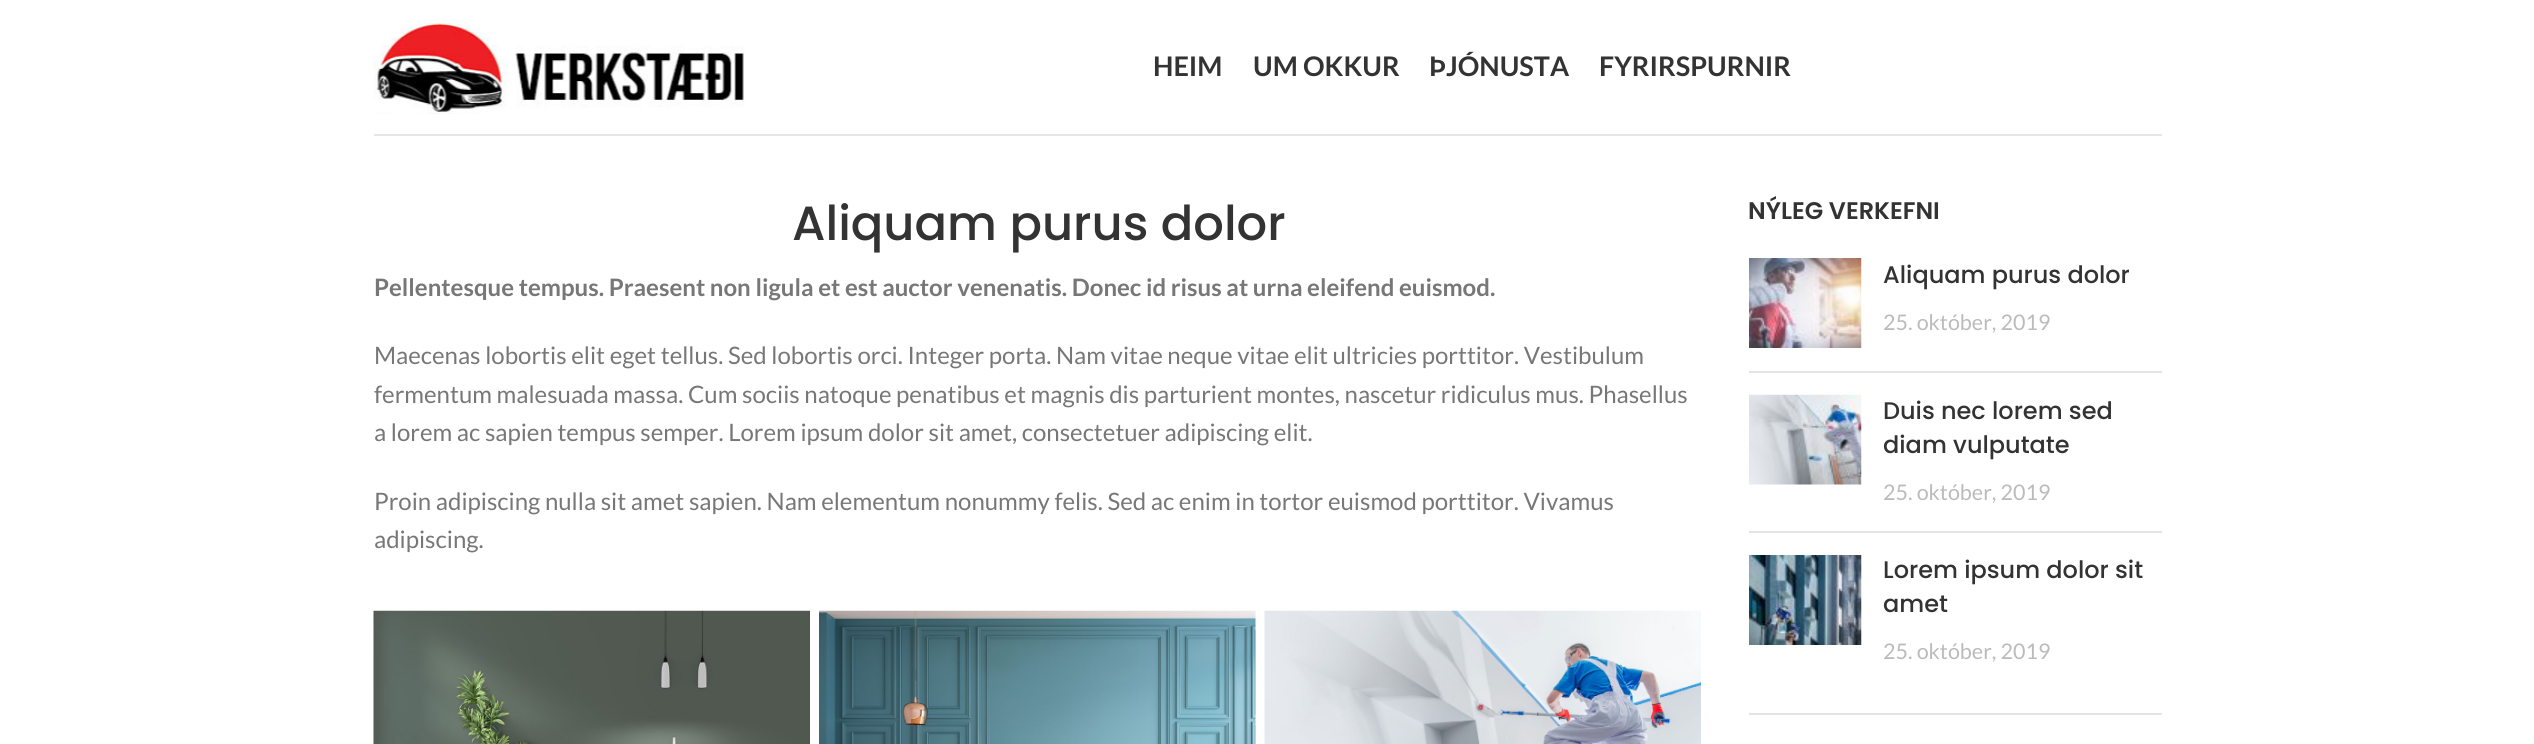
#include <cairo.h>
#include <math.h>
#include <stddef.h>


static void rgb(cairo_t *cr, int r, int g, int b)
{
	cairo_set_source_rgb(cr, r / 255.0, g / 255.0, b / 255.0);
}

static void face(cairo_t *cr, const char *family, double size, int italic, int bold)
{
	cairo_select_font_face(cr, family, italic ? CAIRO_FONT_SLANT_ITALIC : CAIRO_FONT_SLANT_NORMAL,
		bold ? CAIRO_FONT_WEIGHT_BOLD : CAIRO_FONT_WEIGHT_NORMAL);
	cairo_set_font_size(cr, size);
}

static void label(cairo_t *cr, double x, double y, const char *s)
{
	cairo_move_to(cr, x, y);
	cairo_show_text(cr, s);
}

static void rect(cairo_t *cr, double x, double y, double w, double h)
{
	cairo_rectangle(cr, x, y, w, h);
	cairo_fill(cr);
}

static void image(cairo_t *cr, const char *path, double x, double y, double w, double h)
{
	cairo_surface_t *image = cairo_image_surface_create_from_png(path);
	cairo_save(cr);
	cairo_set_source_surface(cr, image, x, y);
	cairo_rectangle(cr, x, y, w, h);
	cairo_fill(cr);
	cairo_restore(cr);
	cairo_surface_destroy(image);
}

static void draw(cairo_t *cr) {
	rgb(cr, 255, 255, 255);
	cairo_paint(cr);
	rgb(cr, 230, 230, 230);
	rect(cr, 374, 134, 1788, 2);
	image(cr, "image0.png", 373, 19, 372, 95);
	face(cr, "Lato", 27, 0, 1);
	rgb(cr, 51, 51, 51);
	label(cr, 1153, 76, "HEIM");
	label(cr, 1253, 76, "UM OKKUR");
	label(cr, 1429, 76, "ÞJÓNUSTA");
	label(cr, 1599, 76, "FYRIRSPURNIR");
	face(cr, "Poppins Medium", 48, 0, 0);
	label(cr, 792, 240, "Aliquam purus dolor");
	face(cr, "Lato", 24, 0, 1);
	rgb(cr, 119, 119, 119);
	label(cr, 374, 296, "Pellentesque tempus. Praesent non ligula et est auctor venenatis. Donec id risus at urna eleifend euismod.");
	face(cr, "Lato", 24, 0, 0);
	label(cr, 374, 364, "Maecenas lobortis elit eget tellus. Sed lobortis orci. Integer porta. Nam vitae neque vitae elit ultricies porttitor. Vestibulum");
	label(cr, 374, 403, "fermentum malesuada massa. Cum sociis natoque penatibus et magnis dis parturient montes, nascetur ridiculus mus. Phasellus");
	label(cr, 374, 441, "a lorem ac sapien tempus semper. Lorem ipsum dolor sit amet, consectetuer adipiscing elit.");
	label(cr, 374, 510, "Proin adipiscing nulla sit amet sapien. Nam elementum nonummy felis. Sed ac enim in tortor euismod porttitor. Vivamus");
	label(cr, 374, 548, "adipiscing.");
	image(cr, "image1.png", 373, 610, 437, 134);
	image(cr, "image2.png", 819, 610, 437, 134);
	image(cr, "image3.png", 1264, 610, 437, 134);
	rgb(cr, 228, 228, 228);
	rect(cr, 1749, 713, 413, 2);
	face(cr, "Poppins SemiBold", 24, 0, 0);
	rgb(cr, 51, 51, 51);
	label(cr, 1748, 219, "NÝLEG VERKEFNI");
	rgb(cr, 228, 228, 228);
	rect(cr, 1749, 371, 413, 2);
	image(cr, "image4.png", 1749, 258, 113, 90);
	face(cr, "Poppins Medium", 24, 0, 0);
	rgb(cr, 51, 51, 51);
	label(cr, 1883, 283, "Aliquam purus dolor");
	face(cr, "Lato", 21.5, 0, 0);
	rgb(cr, 187, 187, 187);
	label(cr, 1883, 330, "25. október, 2019");
	rgb(cr, 228, 228, 228);
	rect(cr, 1749, 531, 413, 2);
	image(cr, "image5.png", 1749, 394, 113, 91);
	face(cr, "Poppins Medium", 24, 0, 0);
	rgb(cr, 51, 51, 51);
	label(cr, 1883, 419, "Duis nec lorem sed");
	label(cr, 1883, 453, "diam vulputate");
	face(cr, "Lato", 21.5, 0, 0);
	rgb(cr, 187, 187, 187);
	label(cr, 1883, 500, "25. október, 2019");
	image(cr, "image6.png", 1749, 555, 113, 90);
	face(cr, "Poppins Medium", 24, 0, 0);
	rgb(cr, 51, 51, 51);
	label(cr, 1883, 578, "Lorem ipsum dolor sit");
	label(cr, 1883, 612, "amet");
	face(cr, "Lato", 21.5, 0, 0);
	rgb(cr, 187, 187, 187);
	label(cr, 1883, 659, "25. október, 2019");
}

int main(void) {
	cairo_surface_t *surface = cairo_image_surface_create(CAIRO_FORMAT_RGB24, 2534, 744);
	cairo_t *cr = cairo_create(surface);
	cairo_font_options_t *options = cairo_font_options_create();
	cairo_font_options_set_hint_metrics(options, CAIRO_HINT_METRICS_OFF);
	cairo_font_options_set_hint_style(options, CAIRO_HINT_STYLE_NONE);
	cairo_set_font_options(cr, options);
	cairo_set_miter_limit(cr, 4);
	draw(cr);
	cairo_surface_write_to_png(surface, "render.png");
	cairo_font_options_destroy(options);
	cairo_destroy(cr);
	cairo_surface_destroy(surface);
	return 0;
}
